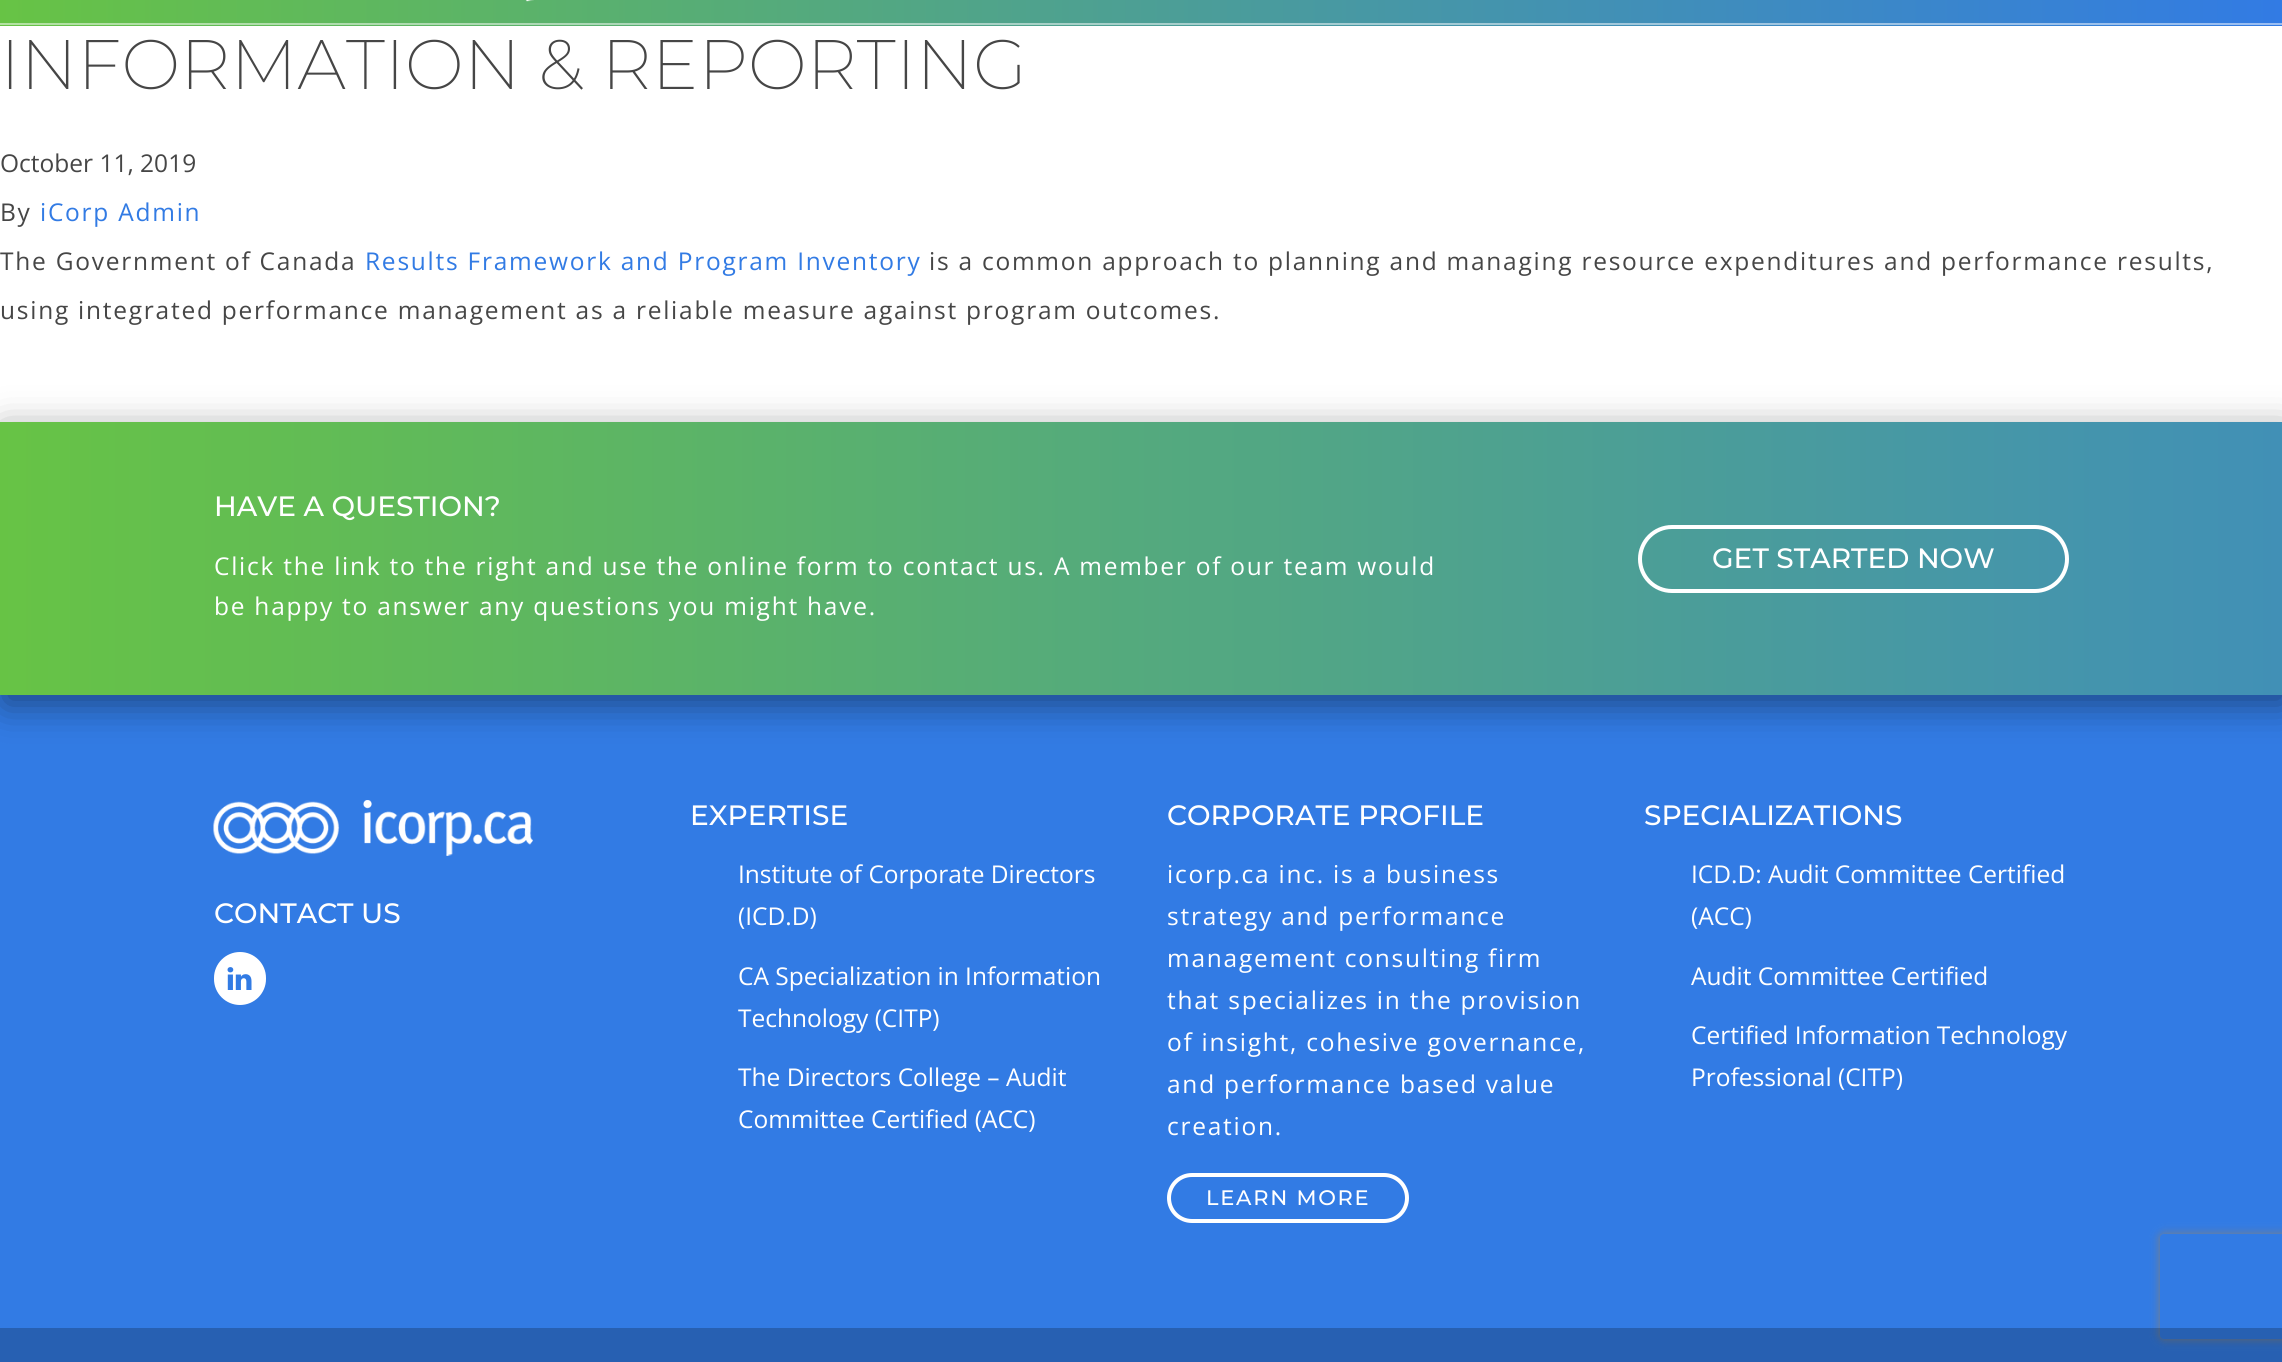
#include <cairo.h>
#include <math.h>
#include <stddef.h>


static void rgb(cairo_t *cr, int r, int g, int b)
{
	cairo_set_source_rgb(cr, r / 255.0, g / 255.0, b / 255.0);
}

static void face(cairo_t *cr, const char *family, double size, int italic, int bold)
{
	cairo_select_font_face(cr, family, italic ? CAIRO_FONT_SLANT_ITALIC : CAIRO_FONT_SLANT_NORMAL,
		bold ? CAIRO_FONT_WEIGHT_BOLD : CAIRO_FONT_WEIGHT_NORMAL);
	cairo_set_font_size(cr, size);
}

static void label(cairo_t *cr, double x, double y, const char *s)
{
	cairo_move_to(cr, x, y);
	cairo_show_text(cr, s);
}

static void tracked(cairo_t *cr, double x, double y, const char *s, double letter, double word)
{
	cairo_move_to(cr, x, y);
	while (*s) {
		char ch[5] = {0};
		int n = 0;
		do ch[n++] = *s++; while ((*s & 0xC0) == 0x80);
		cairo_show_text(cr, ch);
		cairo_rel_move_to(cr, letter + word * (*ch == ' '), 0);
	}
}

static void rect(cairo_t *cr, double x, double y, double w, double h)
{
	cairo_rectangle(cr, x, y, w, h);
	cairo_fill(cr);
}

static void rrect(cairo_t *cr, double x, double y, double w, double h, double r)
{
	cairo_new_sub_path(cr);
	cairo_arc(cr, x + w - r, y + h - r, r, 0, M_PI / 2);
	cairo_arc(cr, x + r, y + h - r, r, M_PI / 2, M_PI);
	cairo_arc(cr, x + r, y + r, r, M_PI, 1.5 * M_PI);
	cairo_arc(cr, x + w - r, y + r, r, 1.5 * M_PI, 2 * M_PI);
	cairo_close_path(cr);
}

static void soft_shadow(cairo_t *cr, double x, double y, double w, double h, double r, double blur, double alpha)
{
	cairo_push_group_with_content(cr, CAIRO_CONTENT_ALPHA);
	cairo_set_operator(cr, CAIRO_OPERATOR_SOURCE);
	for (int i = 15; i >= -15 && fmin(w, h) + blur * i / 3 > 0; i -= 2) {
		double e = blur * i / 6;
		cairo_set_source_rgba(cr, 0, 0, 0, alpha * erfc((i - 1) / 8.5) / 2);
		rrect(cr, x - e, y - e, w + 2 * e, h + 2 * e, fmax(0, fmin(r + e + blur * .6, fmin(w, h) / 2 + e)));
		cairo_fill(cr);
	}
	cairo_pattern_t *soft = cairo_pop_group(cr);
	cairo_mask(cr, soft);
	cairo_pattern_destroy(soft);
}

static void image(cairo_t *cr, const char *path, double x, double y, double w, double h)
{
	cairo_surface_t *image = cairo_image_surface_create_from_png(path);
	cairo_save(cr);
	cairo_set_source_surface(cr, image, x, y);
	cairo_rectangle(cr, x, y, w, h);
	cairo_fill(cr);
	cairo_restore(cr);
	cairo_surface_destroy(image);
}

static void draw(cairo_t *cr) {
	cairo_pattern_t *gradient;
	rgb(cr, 255, 255, 255);
	cairo_paint(cr);
	gradient = cairo_pattern_create_linear(0, -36, 2282, -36);
	cairo_pattern_add_color_stop_rgba(gradient, 0, 0.404, 0.765, 0.271, 1);
	cairo_pattern_add_color_stop_rgba(gradient, 1, 0.196, 0.482, 0.894, 1);
	cairo_set_source(cr, gradient);
	cairo_pattern_destroy(gradient);
	rect(cr, 0, 0, 2282, 26);
	gradient = cairo_pattern_create_linear(0, -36, 2282, -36);
	cairo_pattern_add_color_stop_rgba(gradient, 0, 0.702, 0.882, 0.635, 1);
	cairo_pattern_add_color_stop_rgba(gradient, 1, 0.6, 0.741, 0.949, 1);
	cairo_set_source(cr, gradient);
	cairo_pattern_destroy(gradient);
	rect(cr, 0, 23, 2282, 2);
	image(cr, "image0.png", 525, 0, 9, 2);
	face(cr, "Montserrat ExtraLight", 70, 0, 0);
	rgb(cr, 70, 70, 70);
	label(cr, 0, 89, "INFORMATION & REPORTING");
	face(cr, "Open Sans", 24.5, 0, 0);
	label(cr, 0, 172, "October 11, 2019");
	tracked(cr, 0, 221, "By", 1.75, 0);
	rgb(cr, 50, 123, 228);
	tracked(cr, 40, 221, "iCorp Admin", 1.75, 0);
	rgb(cr, 70, 70, 70);
	tracked(cr, 0, 270, "The Government of Canada", 1.75, 0);
	rgb(cr, 50, 123, 228);
	tracked(cr, 365, 270, "Results Framework and Program Inventory", 1.75, 0);
	rgb(cr, 70, 70, 70);
	tracked(cr, 929, 270, "is a common approach to planning and managing resource expenditures and performance results,", 1.75, 0);
	tracked(cr, 0, 319, "using integrated performance management as a reliable measure against program outcomes.", 1.75, 0);
	rgb(cr, 50, 123, 228);
	rect(cr, 0, 695, 2282, 667);
	rgb(cr, 4, 5, 5);
	soft_shadow(cr, 4, 431, 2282, 273, 0, 18.5, 0.45);
	gradient = cairo_pattern_create_linear(0, 558, 2282, 558);
	cairo_pattern_add_color_stop_rgba(gradient, 0, 0.404, 0.765, 0.271, 1);
	cairo_pattern_add_color_stop_rgba(gradient, 1, 0.255, 0.565, 0.714, 1);
	cairo_set_source(cr, gradient);
	cairo_pattern_destroy(gradient);
	rect(cr, 0, 422, 2282, 273);
	face(cr, "Montserrat Medium", 28, 0, 0);
	rgb(cr, 255, 255, 255);
	label(cr, 214, 516, "HAVE A QUESTION?");
	face(cr, "Open Sans", 24.5, 0, 0);
	tracked(cr, 214, 575, "Click the link to the right and use the online form to contact us. A member of our team would", 1.75, 0);
	tracked(cr, 214, 615, "be happy to answer any questions you might have.", 1.75, 0);
	rrect(cr, 1640, 527, 427, 64, 32);
	cairo_set_line_width(cr, 4);
	cairo_stroke(cr);
	face(cr, "Montserrat Medium", 28, 0, 0);
	label(cr, 1712, 568, "GET STARTED NOW");
	image(cr, "image1.png", 213, 800, 320, 56);
	label(cr, 214, 923, "CONTACT US");
	rrect(cr, 214, 952, 52, 53, 26);
	cairo_fill(cr);
	image(cr, "image2.png", 227, 967, 25, 23);
	label(cr, 690, 825, "EXPERTISE");
	face(cr, "Open Sans", 24.5, 0, 0);
	label(cr, 738, 883, "Institute of Corporate Directors");
	label(cr, 738, 925, "(ICD.D)");
	label(cr, 738, 985, "CA Specialization in Information");
	label(cr, 738, 1027, "Technology (CITP)");
	label(cr, 738, 1086, "The Directors College – Audit");
	label(cr, 738, 1128, "Committee Certified (ACC)");
	face(cr, "Montserrat Medium", 28, 0, 0);
	label(cr, 1167, 825, "CORPORATE PROFILE");
	face(cr, "Open Sans", 24.5, 0, 0);
	tracked(cr, 1167, 883, "icorp.ca inc. is a business", 1.75, 0);
	tracked(cr, 1167, 925, "strategy and performance", 1.75, 0);
	tracked(cr, 1167, 967, "management consulting firm", 1.75, 0);
	tracked(cr, 1167, 1009, "that specializes in the provision", 1.75, 0);
	tracked(cr, 1167, 1051, "of insight, cohesive governance,", 1.75, 0);
	tracked(cr, 1167, 1093, "and performance based value", 1.75, 0);
	tracked(cr, 1167, 1135, "creation.", 1.75, 0);
	rrect(cr, 1169, 1175, 238, 46, 23);
	cairo_stroke(cr);
	face(cr, "Montserrat Medium", 21, 0, 0);
	tracked(cr, 1206, 1205, "LEARN MORE", 1.75, 0);
	face(cr, "Montserrat Medium", 28, 0, 0);
	label(cr, 1644, 825, "SPECIALIZATIONS");
	face(cr, "Open Sans", 24.5, 0, 0);
	label(cr, 1691, 883, "ICD.D: Audit Committee Certified");
	label(cr, 1691, 925, "(ACC)");
	label(cr, 1691, 985, "Audit Committee Certified");
	label(cr, 1691, 1044, "Certified Information Technology");
	label(cr, 1691, 1086, "Professional (CITP)");
	cairo_save(cr);
	cairo_set_fill_rule(cr, CAIRO_FILL_RULE_EVEN_ODD);
	cairo_new_path(cr);
	cairo_move_to(cr, 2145, 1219);
	cairo_line_to(cr, 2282, 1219);
	cairo_line_to(cr, 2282, 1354);
	cairo_line_to(cr, 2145, 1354);
	cairo_close_path(cr);
	cairo_move_to(cr, 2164, 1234);
	cairo_line_to(cr, 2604, 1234);
	cairo_curve_to(cr, 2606, 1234, 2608, 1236, 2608, 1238);
	cairo_line_to(cr, 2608, 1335);
	cairo_curve_to(cr, 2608, 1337, 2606, 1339, 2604, 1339);
	cairo_line_to(cr, 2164, 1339);
	cairo_curve_to(cr, 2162, 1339, 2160, 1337, 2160, 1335);
	cairo_line_to(cr, 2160, 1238);
	cairo_curve_to(cr, 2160, 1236, 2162, 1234, 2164, 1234);
	cairo_close_path(cr);
	cairo_clip(cr);
	rgb(cr, 128, 128, 128);
	soft_shadow(cr, 2160, 1234, 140, 105, 4, 4.5, 1);
	cairo_restore(cr);
	cairo_set_source_rgba(cr, 0, 0, 0, 0.22);
	rect(cr, 0, 1328, 2282, 34);
}

int main(void) {
	cairo_surface_t *surface = cairo_image_surface_create(CAIRO_FORMAT_RGB24, 2282, 1362);
	cairo_t *cr = cairo_create(surface);
	cairo_font_options_t *options = cairo_font_options_create();
	cairo_font_options_set_hint_metrics(options, CAIRO_HINT_METRICS_OFF);
	cairo_font_options_set_hint_style(options, CAIRO_HINT_STYLE_NONE);
	cairo_set_font_options(cr, options);
	cairo_set_miter_limit(cr, 4);
	draw(cr);
	cairo_surface_write_to_png(surface, "render.png");
	cairo_font_options_destroy(options);
	cairo_destroy(cr);
	cairo_surface_destroy(surface);
	return 0;
}
